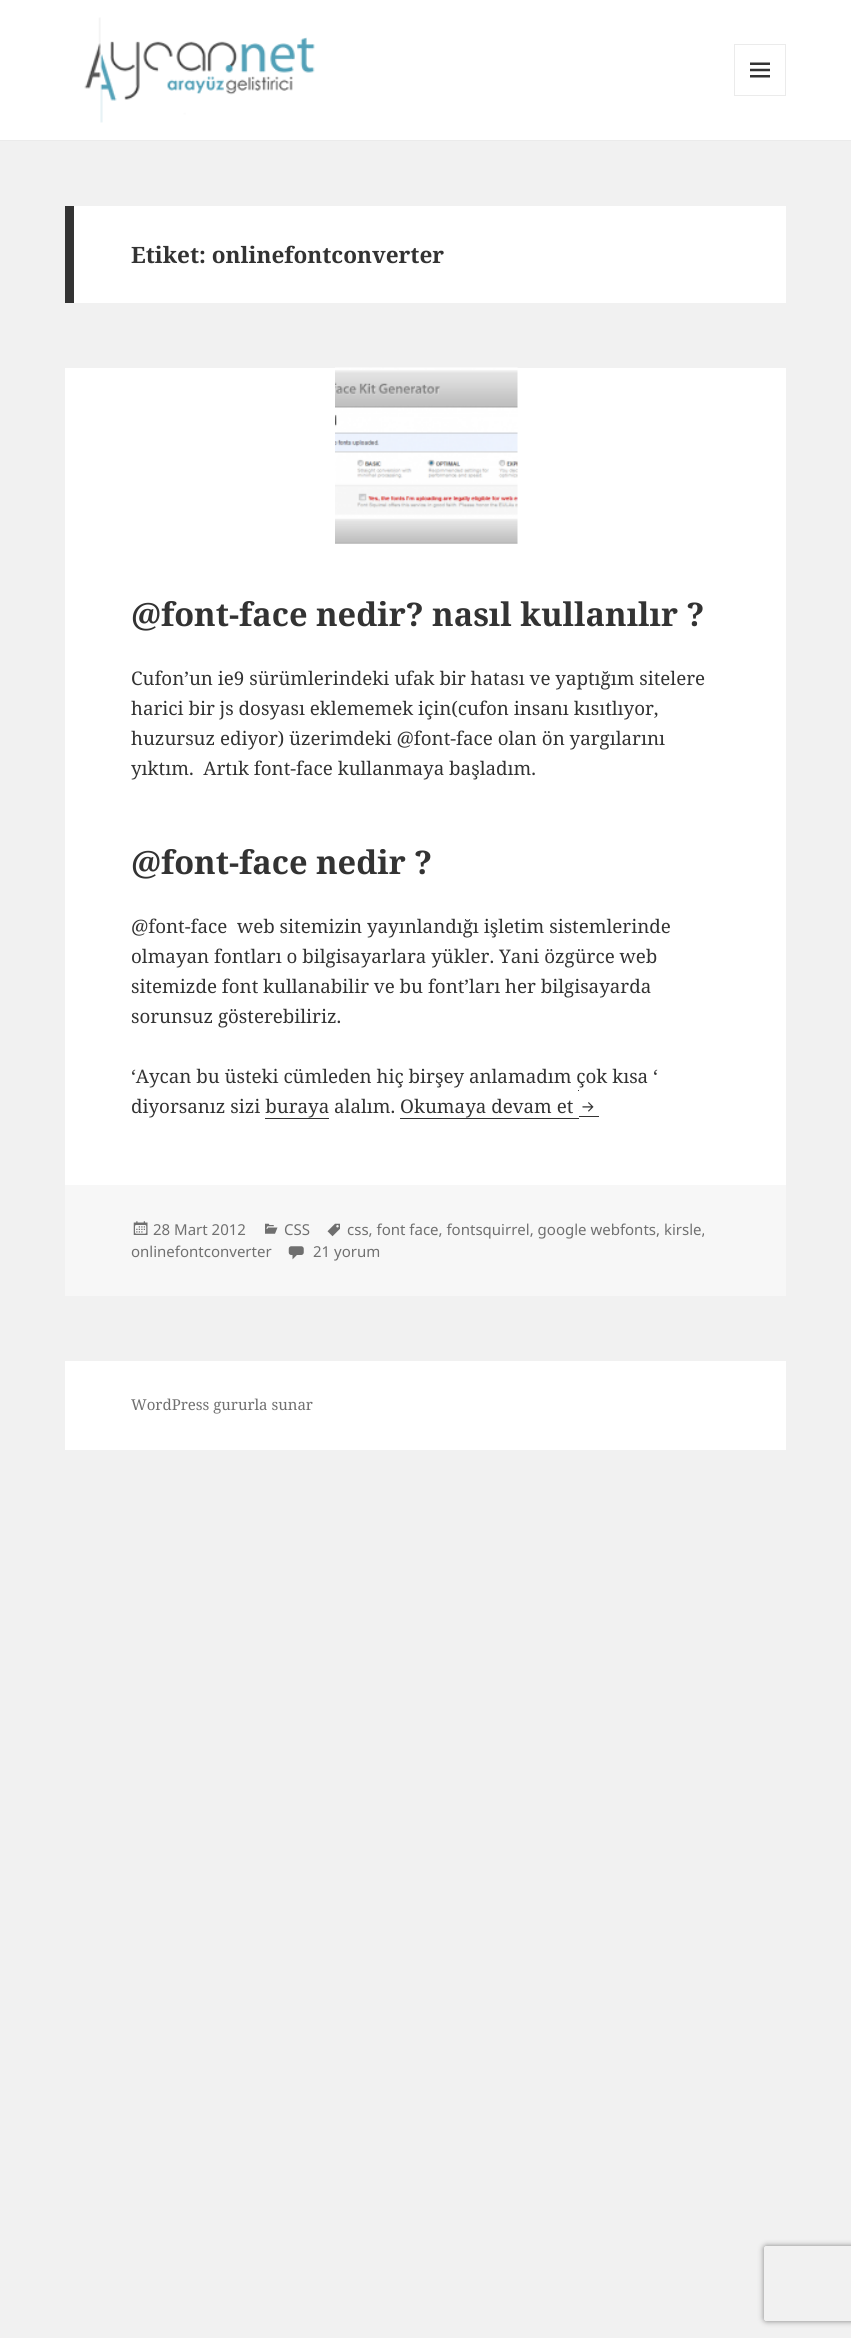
#include <cairo.h>
#include <math.h>
#include <stddef.h>


static void rgb(cairo_t *cr, int r, int g, int b)
{
	cairo_set_source_rgb(cr, r / 255.0, g / 255.0, b / 255.0);
}

static void face(cairo_t *cr, const char *family, double size, int italic, int bold)
{
	cairo_select_font_face(cr, family, italic ? CAIRO_FONT_SLANT_ITALIC : CAIRO_FONT_SLANT_NORMAL,
		bold ? CAIRO_FONT_WEIGHT_BOLD : CAIRO_FONT_WEIGHT_NORMAL);
	cairo_set_font_size(cr, size);
}

static void label(cairo_t *cr, double x, double y, const char *s)
{
	cairo_move_to(cr, x, y);
	cairo_show_text(cr, s);
}

static void rect(cairo_t *cr, double x, double y, double w, double h)
{
	cairo_rectangle(cr, x, y, w, h);
	cairo_fill(cr);
}

static void rrect(cairo_t *cr, double x, double y, double w, double h, double r)
{
	cairo_new_sub_path(cr);
	cairo_arc(cr, x + w - r, y + h - r, r, 0, M_PI / 2);
	cairo_arc(cr, x + r, y + h - r, r, M_PI / 2, M_PI);
	cairo_arc(cr, x + r, y + r, r, M_PI, 1.5 * M_PI);
	cairo_arc(cr, x + w - r, y + r, r, 1.5 * M_PI, 2 * M_PI);
	cairo_close_path(cr);
}

static void soft_shadow(cairo_t *cr, double x, double y, double w, double h, double r, double blur, double alpha)
{
	cairo_push_group_with_content(cr, CAIRO_CONTENT_ALPHA);
	cairo_set_operator(cr, CAIRO_OPERATOR_SOURCE);
	for (int i = 15; i >= -15 && fmin(w, h) + blur * i / 3 > 0; i -= 2) {
		double e = blur * i / 6;
		cairo_set_source_rgba(cr, 0, 0, 0, alpha * erfc((i - 1) / 8.5) / 2);
		rrect(cr, x - e, y - e, w + 2 * e, h + 2 * e, fmax(0, fmin(r + e + blur * .6, fmin(w, h) / 2 + e)));
		cairo_fill(cr);
	}
	cairo_pattern_t *soft = cairo_pop_group(cr);
	cairo_mask(cr, soft);
	cairo_pattern_destroy(soft);
}

static void image(cairo_t *cr, const char *path, double x, double y, double w, double h)
{
	cairo_surface_t *image = cairo_image_surface_create_from_png(path);
	cairo_save(cr);
	cairo_set_source_surface(cr, image, x, y);
	cairo_rectangle(cr, x, y, w, h);
	cairo_fill(cr);
	cairo_restore(cr);
	cairo_surface_destroy(image);
}

static void draw(cairo_t *cr) {
	rgb(cr, 241, 241, 241);
	cairo_paint(cr);
	rgb(cr, 255, 255, 255);
	rect(cr, 0, 0, 851, 140);
	rgb(cr, 235, 235, 235);
	rect(cr, 0, 140, 851, 1);
	image(cr, "image0.png", 84, 17, 231, 106);
	cairo_rectangle(cr, 734.5, 44.5, 51, 51);
	cairo_set_line_width(cr, 1);
	cairo_stroke(cr);
	image(cr, "image1.png", 750, 62, 20, 16);
	rgb(cr, 255, 255, 255);
	rect(cr, 74, 206, 712, 97);
	rgb(cr, 51, 51, 51);
	rect(cr, 65, 206, 9, 97);
	face(cr, "Noto Serif", 22.5, 0, 1);
	label(cr, 131, 263, "Etiket: onlinefontconverter");
	rgb(cr, 255, 255, 255);
	rect(cr, 65, 368, 721, 817);
	image(cr, "image2.png", 335, 367, 183, 177);
	face(cr, "Noto Serif", 32.5, 0, 1);
	rgb(cr, 51, 51, 51);
	label(cr, 131, 626, "@font-face nedir? nasıl kullanılır ?");
	face(cr, "Noto Serif", 18.75, 0, 0);
	label(cr, 131, 685, "Cufon’un ie9 sürümlerindeki ufak bir hatası ve yaptığım sitelere");
	label(cr, 131, 715, "harici bir js dosyası eklememek için(cufon insanı kısıtlıyor,");
	label(cr, 131, 745, "huzursuz ediyor) üzerimdeki @font-face olan ön yargılarını");
	label(cr, 131, 775, "yıktım.  Artık font-face kullanmaya başladım.");
	face(cr, "Noto Serif", 32.5, 0, 1);
	label(cr, 131, 874, "@font-face nedir ?");
	face(cr, "Noto Serif", 18.75, 0, 0);
	label(cr, 131, 933, "@font-face  web sitemizin yayınlandığı işletim sistemlerinde");
	label(cr, 131, 963, "olmayan fontları o bilgisayarlara yükler. Yani özgürce web");
	label(cr, 131, 993, "sitemizde font kullanabilir ve bu font’ları her bilgisayarda");
	label(cr, 131, 1023, "sorunsuz gösterebiliriz.");
	label(cr, 131, 1083, "‘Aycan bu üsteki cümleden hiç birşey anlamadım çok kısa ‘");
	rect(cr, 400, 1118, 179, 1);
	rect(cr, 578, 1090, 1, 1);
	rect(cr, 579, 1116, 20, 1);
	image(cr, "image3.png", 582, 1102, 12, 10);
	label(cr, 131, 1113, "diyorsanız sizi buraya alalım. Okumaya devam et");
	rect(cr, 265, 1118, 64, 1);
	rgb(cr, 247, 247, 247);
	rect(cr, 65, 1185, 721, 111);
	image(cr, "image4.png", 327, 1223, 13, 14);
	face(cr, "Noto Sans", 15, 0, 0);
	rgb(cr, 112, 112, 112);
	label(cr, 347, 1235, "css, font face, fontsquirrel, google webfonts, kirsle,");
	label(cr, 131, 1257, "onlinefontconverter");
	image(cr, "image5.png", 133, 1221, 15, 14);
	label(cr, 153, 1235, "28 Mart 2012");
	image(cr, "image6.png", 265, 1223, 13, 11);
	label(cr, 284, 1235, "CSS");
	image(cr, "image7.png", 288, 1246, 16, 14);
	label(cr, 313, 1257, "21 yorum");
	rgb(cr, 255, 255, 255);
	rect(cr, 65, 1361, 721, 89);
	face(cr, "Noto Serif", 15, 0, 0);
	rgb(cr, 112, 112, 112);
	label(cr, 131, 1410, "WordPress gururla sunar");
	cairo_save(cr);
	cairo_set_fill_rule(cr, CAIRO_FILL_RULE_EVEN_ODD);
	cairo_new_path(cr);
	cairo_move_to(cr, 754, 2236);
	cairo_line_to(cr, 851, 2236);
	cairo_line_to(cr, 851, 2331);
	cairo_line_to(cr, 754, 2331);
	cairo_close_path(cr);
	cairo_move_to(cr, 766.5, 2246);
	cairo_line_to(cr, 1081.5, 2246);
	cairo_curve_to(cr, 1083, 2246, 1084, 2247, 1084, 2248.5);
	cairo_line_to(cr, 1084, 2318.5);
	cairo_curve_to(cr, 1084, 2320, 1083, 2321, 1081.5, 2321);
	cairo_line_to(cr, 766.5, 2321);
	cairo_curve_to(cr, 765, 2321, 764, 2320, 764, 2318.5);
	cairo_line_to(cr, 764, 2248.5);
	cairo_curve_to(cr, 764, 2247, 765, 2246, 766.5, 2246);
	cairo_close_path(cr);
	cairo_clip(cr);
	rgb(cr, 128, 128, 128);
	soft_shadow(cr, 764, 2246, 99, 75, 2.5, 3, 1);
	cairo_restore(cr);
}

int main(void) {
	cairo_surface_t *surface = cairo_image_surface_create(CAIRO_FORMAT_RGB24, 851, 2338);
	cairo_t *cr = cairo_create(surface);
	cairo_font_options_t *options = cairo_font_options_create();
	cairo_font_options_set_hint_metrics(options, CAIRO_HINT_METRICS_OFF);
	cairo_font_options_set_hint_style(options, CAIRO_HINT_STYLE_NONE);
	cairo_set_font_options(cr, options);
	cairo_set_miter_limit(cr, 4);
	draw(cr);
	cairo_surface_write_to_png(surface, "render.png");
	cairo_font_options_destroy(options);
	cairo_destroy(cr);
	cairo_surface_destroy(surface);
	return 0;
}
